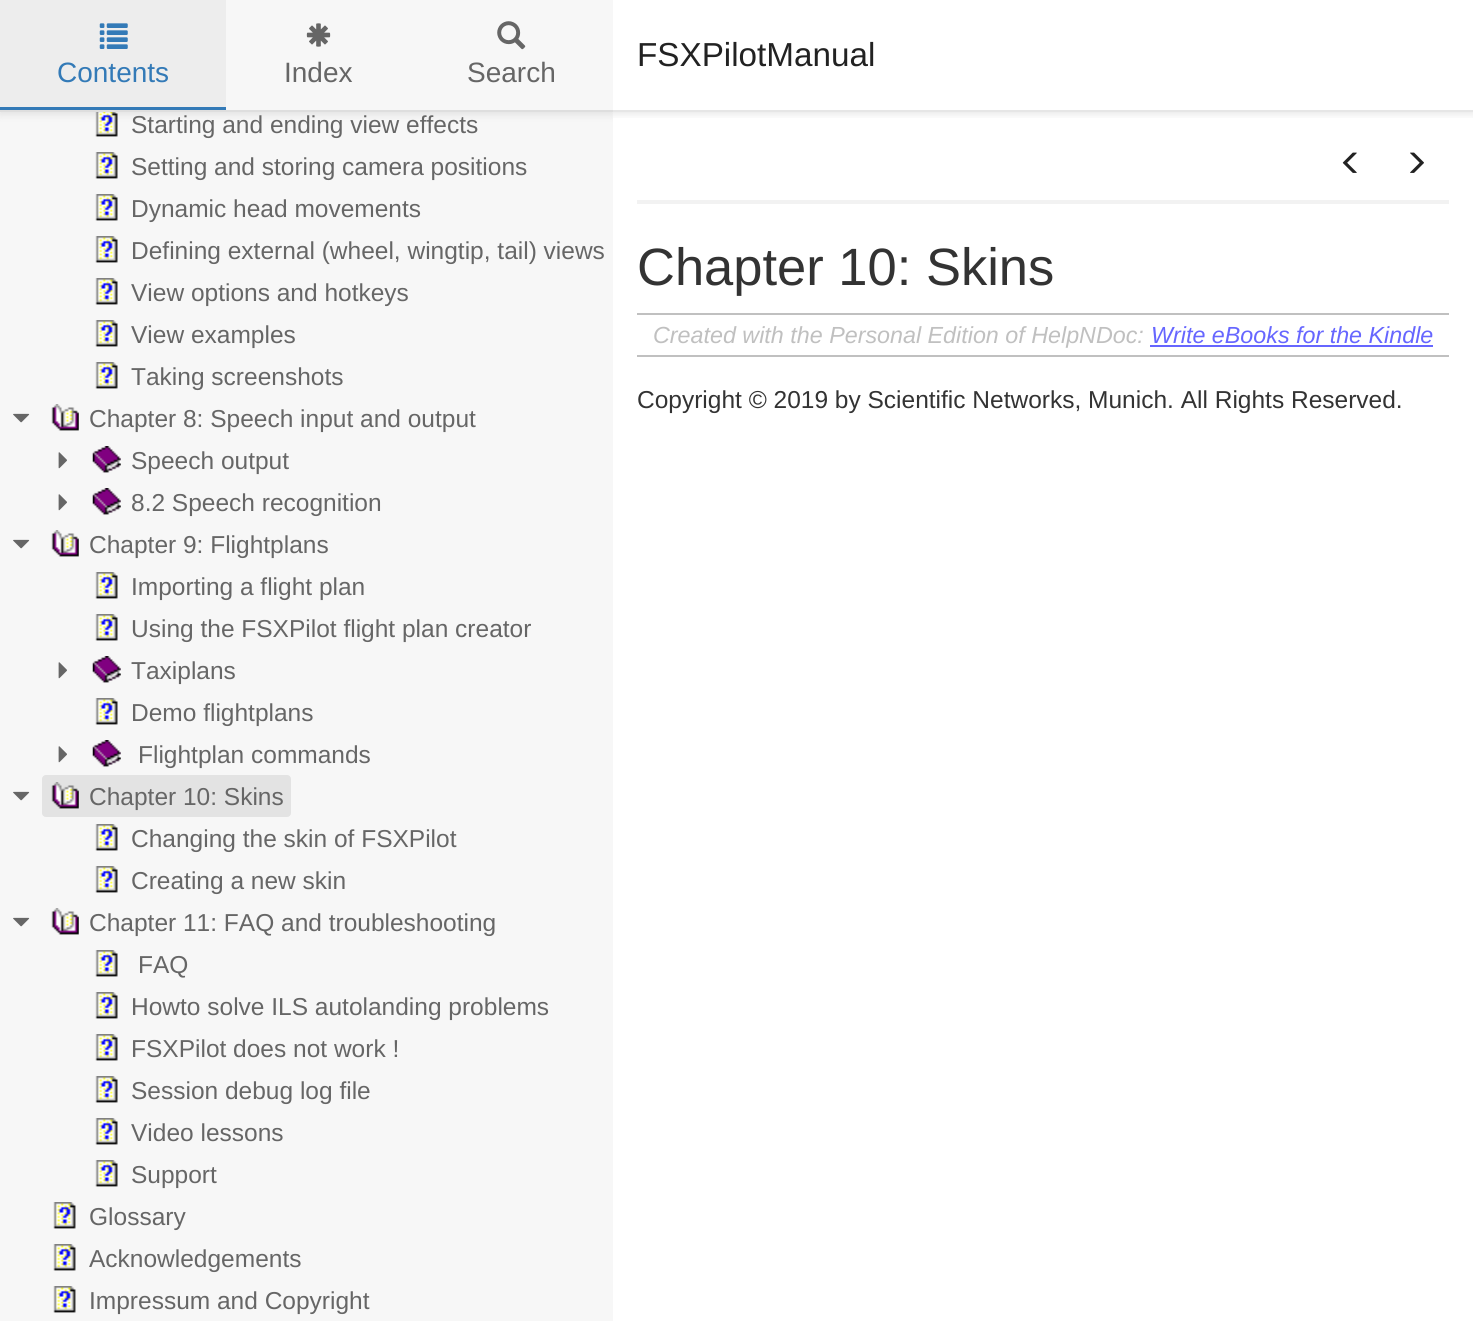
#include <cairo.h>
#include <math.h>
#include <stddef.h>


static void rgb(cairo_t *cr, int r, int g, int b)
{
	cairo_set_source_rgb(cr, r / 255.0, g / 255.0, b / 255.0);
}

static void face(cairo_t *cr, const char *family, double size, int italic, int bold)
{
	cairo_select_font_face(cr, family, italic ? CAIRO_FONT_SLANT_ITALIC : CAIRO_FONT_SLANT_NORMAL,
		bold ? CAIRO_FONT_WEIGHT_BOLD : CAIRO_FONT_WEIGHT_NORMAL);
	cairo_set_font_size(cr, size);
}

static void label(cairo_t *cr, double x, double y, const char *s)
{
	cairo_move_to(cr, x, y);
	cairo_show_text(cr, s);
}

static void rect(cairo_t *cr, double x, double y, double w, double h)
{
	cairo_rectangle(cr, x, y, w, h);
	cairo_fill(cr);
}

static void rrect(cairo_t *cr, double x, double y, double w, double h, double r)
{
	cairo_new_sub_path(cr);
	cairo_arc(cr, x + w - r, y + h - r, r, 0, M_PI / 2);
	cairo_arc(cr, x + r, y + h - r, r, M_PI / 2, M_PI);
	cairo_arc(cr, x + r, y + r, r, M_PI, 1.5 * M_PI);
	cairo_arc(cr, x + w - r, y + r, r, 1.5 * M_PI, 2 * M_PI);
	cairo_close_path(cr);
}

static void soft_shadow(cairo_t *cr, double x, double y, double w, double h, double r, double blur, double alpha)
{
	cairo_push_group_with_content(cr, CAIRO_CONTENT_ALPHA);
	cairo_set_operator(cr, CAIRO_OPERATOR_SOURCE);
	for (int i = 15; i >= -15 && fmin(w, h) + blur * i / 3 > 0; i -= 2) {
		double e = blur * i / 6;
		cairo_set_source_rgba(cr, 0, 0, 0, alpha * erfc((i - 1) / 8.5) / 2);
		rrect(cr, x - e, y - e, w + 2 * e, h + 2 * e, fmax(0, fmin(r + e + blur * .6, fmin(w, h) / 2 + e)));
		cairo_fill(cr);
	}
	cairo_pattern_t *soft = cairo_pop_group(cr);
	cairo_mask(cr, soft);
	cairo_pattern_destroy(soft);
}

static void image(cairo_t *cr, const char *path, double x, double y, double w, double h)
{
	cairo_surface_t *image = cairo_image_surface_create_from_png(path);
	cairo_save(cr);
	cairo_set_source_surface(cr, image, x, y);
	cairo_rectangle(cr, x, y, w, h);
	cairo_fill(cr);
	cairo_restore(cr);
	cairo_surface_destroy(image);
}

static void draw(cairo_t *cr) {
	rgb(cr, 255, 255, 255);
	cairo_paint(cr);
	cairo_save(cr);
	cairo_rectangle(cr, 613, 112, 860, 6);
	cairo_clip(cr);
	rgb(cr, 0, 0, 0);
	soft_shadow(cr, 0, 2, 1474, 112, 0, 4.5, 0.1);
	cairo_restore(cr);
	rgb(cr, 230, 230, 230);
	rect(cr, 613, 110, 860, 2);
	face(cr, "Liberation Sans", 33.25, 0, 0);
	rgb(cr, 34, 34, 34);
	label(cr, 637, 66, "FSXPilotManual");
	rgb(cr, 247, 247, 247);
	rect(cr, 0, 0, 613, 1321);
	cairo_save(cr);
	cairo_rectangle(cr, 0, 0, 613, 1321);
	cairo_clip(cr);
	cairo_set_fill_rule(cr, CAIRO_FILL_RULE_EVEN_ODD);
	cairo_new_path(cr);
	cairo_move_to(cr, 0, 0);
	cairo_line_to(cr, 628, 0);
	cairo_line_to(cr, 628, 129);
	cairo_line_to(cr, 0, 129);
	cairo_close_path(cr);
	cairo_move_to(cr, 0, 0);
	cairo_line_to(cr, 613, 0);
	cairo_line_to(cr, 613, 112);
	cairo_line_to(cr, 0, 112);
	cairo_close_path(cr);
	cairo_clip(cr);
	rgb(cr, 0, 0, 0);
	soft_shadow(cr, 0, 2, 613, 112, 0, 4.5, 0.1);
	cairo_restore(cr);
	rgb(cr, 222, 222, 222);
	rect(cr, 0, 110, 613, 2);
	rgb(cr, 237, 237, 237);
	rect(cr, 0, 0, 226, 107);
	image(cr, "image0.png", 99, 23, 29, 26);
	face(cr, "Liberation Sans", 28, 0, 0);
	rgb(cr, 51, 122, 183);
	label(cr, 57, 82, "Contents");
	rect(cr, 0, 107, 226, 3);
	image(cr, "image1.png", 306, 23, 25, 24);
	rgb(cr, 102, 102, 102);
	label(cr, 284, 82, "Index");
	image(cr, "image2.png", 497, 21, 29, 29);
	label(cr, 467, 82, "Search");
	image(cr, "image3.png", 95, 112, 23, 25);
	face(cr, "Liberation Sans", 24.5, 0, 0);
	label(cr, 131, 133, "Starting and ending view effects");
	image(cr, "image4.png", 95, 152, 23, 27);
	label(cr, 131, 175, "Setting and storing camera positions");
	image(cr, "image5.png", 95, 194, 23, 27);
	label(cr, 131, 217, "Dynamic head movements");
	image(cr, "image5.png", 95, 236, 23, 27);
	label(cr, 131, 259, "Defining external (wheel, wingtip, tail) views");
	image(cr, "image4.png", 95, 278, 23, 27);
	label(cr, 131, 301, "View options and hotkeys");
	image(cr, "image4.png", 95, 320, 23, 27);
	label(cr, 131, 343, "View examples");
	image(cr, "image4.png", 95, 362, 23, 27);
	label(cr, 131, 385, "Taking screenshots");
	image(cr, "image6.png", 13, 413, 17, 10);
	image(cr, "image7.png", 51, 404, 28, 27);
	label(cr, 89, 427, "Chapter 8: Speech input and output");
	image(cr, "image8.png", 58, 452, 9, 17);
	image(cr, "image9.png", 92, 446, 29, 27);
	label(cr, 131, 469, "Speech output");
	image(cr, "image8.png", 58, 494, 9, 17);
	image(cr, "image9.png", 92, 488, 29, 27);
	label(cr, 131, 511, "8.2 Speech recognition");
	image(cr, "image6.png", 13, 539, 17, 10);
	image(cr, "image7.png", 51, 530, 28, 27);
	label(cr, 89, 553, "Chapter 9: Flightplans");
	image(cr, "image4.png", 95, 572, 23, 27);
	label(cr, 131, 595, "Importing a flight plan");
	image(cr, "image4.png", 95, 614, 23, 27);
	label(cr, 131, 637, "Using the FSXPilot flight plan creator");
	image(cr, "image8.png", 58, 662, 9, 17);
	image(cr, "image9.png", 92, 656, 29, 27);
	label(cr, 131, 679, "Taxiplans");
	image(cr, "image4.png", 95, 698, 23, 27);
	label(cr, 131, 721, "Demo flightplans");
	image(cr, "image8.png", 58, 746, 9, 17);
	image(cr, "image9.png", 92, 740, 29, 27);
	label(cr, 138, 763, "Flightplan commands");
	image(cr, "image6.png", 13, 791, 17, 10);
	rgb(cr, 227, 227, 227);
	rrect(cr, 42, 775, 249, 42, 4);
	cairo_fill(cr);
	image(cr, "image10.png", 51, 782, 28, 27);
	rgb(cr, 102, 102, 102);
	label(cr, 89, 805, "Chapter 10: Skins");
	image(cr, "image4.png", 95, 824, 23, 27);
	label(cr, 131, 847, "Changing the skin of FSXPilot");
	image(cr, "image4.png", 95, 866, 23, 27);
	label(cr, 131, 889, "Creating a new skin");
	image(cr, "image6.png", 13, 917, 17, 10);
	image(cr, "image7.png", 51, 908, 28, 27);
	label(cr, 89, 931, "Chapter 11: FAQ and troubleshooting");
	image(cr, "image4.png", 95, 950, 23, 27);
	label(cr, 138, 973, "FAQ");
	image(cr, "image4.png", 95, 992, 23, 27);
	label(cr, 131, 1015, "Howto solve ILS autolanding problems");
	image(cr, "image4.png", 95, 1034, 23, 27);
	label(cr, 131, 1057, "FSXPilot does not work !");
	image(cr, "image4.png", 95, 1076, 23, 27);
	label(cr, 131, 1099, "Session debug log file");
	image(cr, "image4.png", 95, 1118, 23, 27);
	label(cr, 131, 1141, "Video lessons");
	image(cr, "image4.png", 95, 1160, 23, 27);
	label(cr, 131, 1183, "Support");
	image(cr, "image11.png", 53, 1202, 23, 27);
	label(cr, 89, 1225, "Glossary");
	image(cr, "image11.png", 53, 1244, 23, 27);
	label(cr, 89, 1267, "Acknowledgements");
	image(cr, "image11.png", 53, 1286, 23, 27);
	label(cr, 89, 1309, "Impressum and Copyright");
	rgb(cr, 242, 242, 242);
	rect(cr, 637, 200, 812, 4);
	image(cr, "image12.png", 1342, 152, 15, 21);
	image(cr, "image13.png", 1410, 152, 14, 21);
	face(cr, "Liberation Sans", 52.5, 0, 0);
	rgb(cr, 51, 51, 51);
	label(cr, 637, 285, "Chapter 10: Skins");
	rgb(cr, 192, 192, 192);
	rect(cr, 637, 313, 812, 2);
	rect(cr, 637, 355, 812, 2);
	face(cr, "Liberation Sans", 23.3, 1, 0);
	label(cr, 653, 343, "Created with the Personal Edition of HelpNDoc:");
	rgb(cr, 102, 102, 255);
	label(cr, 1151, 343, "Write eBooks for the Kindle");
	rect(cr, 1150, 345, 283, 2);
	face(cr, "Liberation Sans", 24.5, 0, 0);
	rgb(cr, 51, 51, 51);
	label(cr, 637, 408, "Copyright © 2019 by Scientific Networks, Munich. All Rights Reserved.");
}

int main(void) {
	cairo_surface_t *surface = cairo_image_surface_create(CAIRO_FORMAT_RGB24, 1473, 1321);
	cairo_t *cr = cairo_create(surface);
	cairo_font_options_t *options = cairo_font_options_create();
	cairo_font_options_set_hint_metrics(options, CAIRO_HINT_METRICS_OFF);
	cairo_font_options_set_hint_style(options, CAIRO_HINT_STYLE_NONE);
	cairo_set_font_options(cr, options);
	cairo_set_miter_limit(cr, 4);
	draw(cr);
	cairo_surface_write_to_png(surface, "render.png");
	cairo_font_options_destroy(options);
	cairo_destroy(cr);
	cairo_surface_destroy(surface);
	return 0;
}
